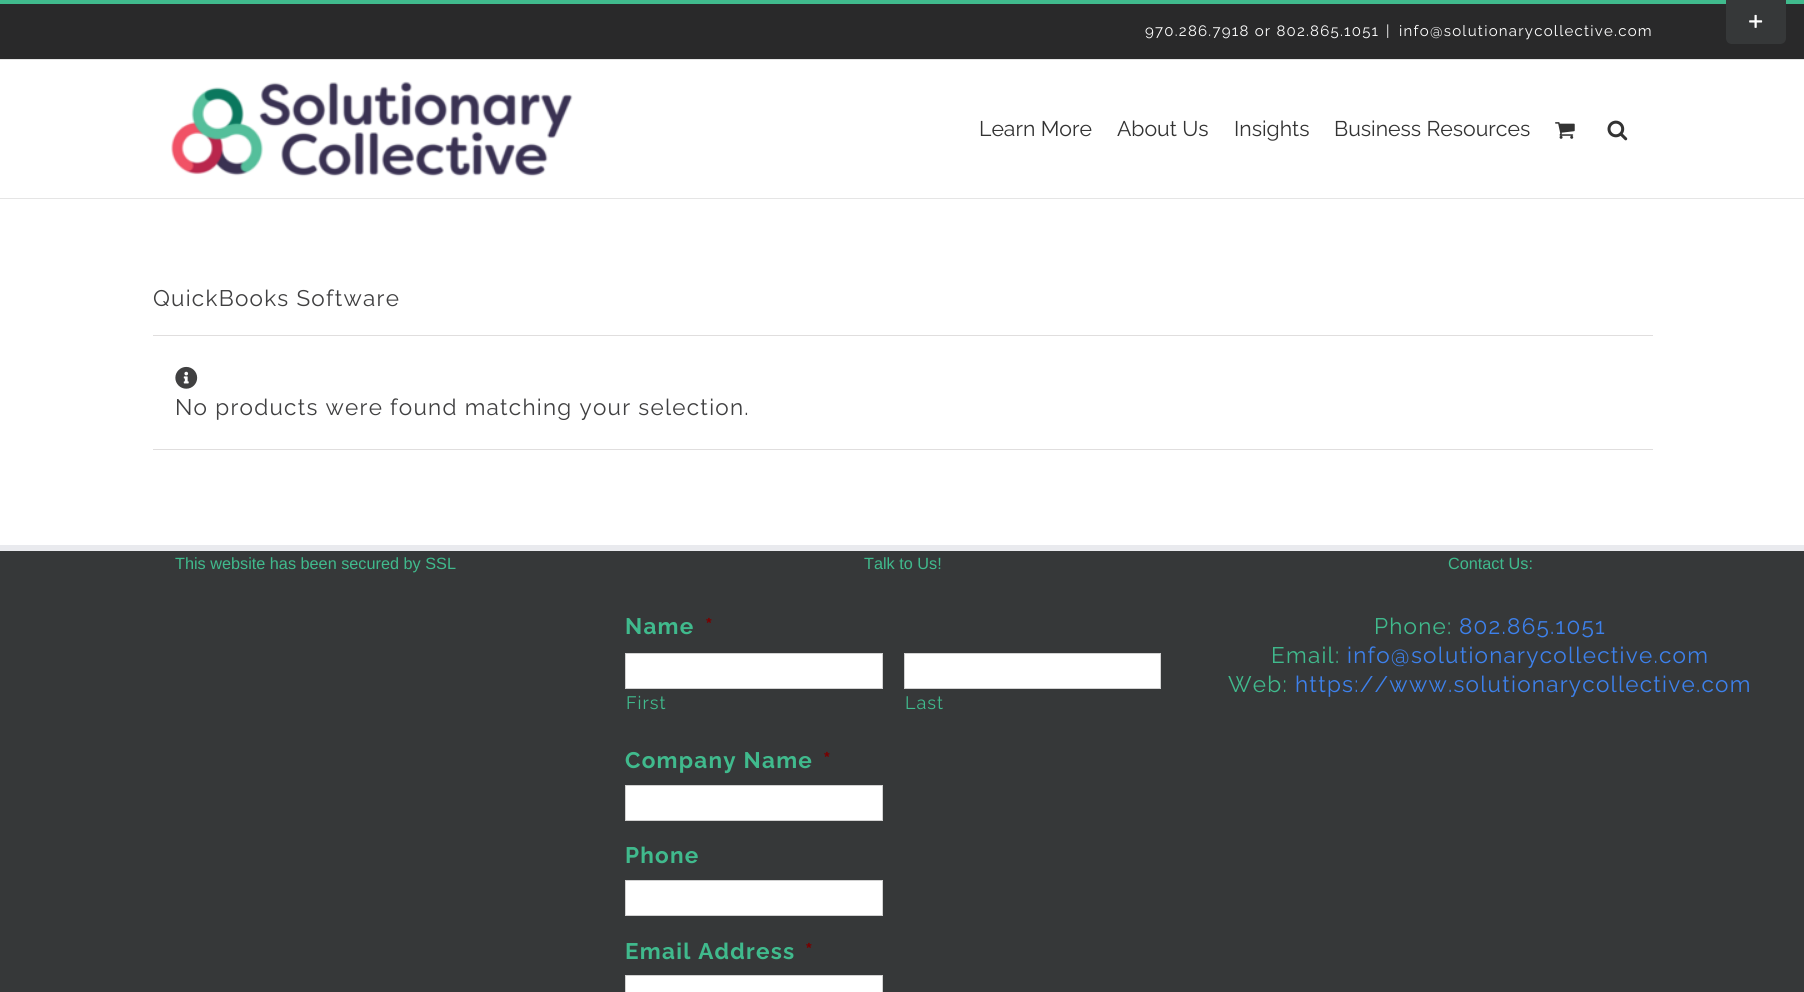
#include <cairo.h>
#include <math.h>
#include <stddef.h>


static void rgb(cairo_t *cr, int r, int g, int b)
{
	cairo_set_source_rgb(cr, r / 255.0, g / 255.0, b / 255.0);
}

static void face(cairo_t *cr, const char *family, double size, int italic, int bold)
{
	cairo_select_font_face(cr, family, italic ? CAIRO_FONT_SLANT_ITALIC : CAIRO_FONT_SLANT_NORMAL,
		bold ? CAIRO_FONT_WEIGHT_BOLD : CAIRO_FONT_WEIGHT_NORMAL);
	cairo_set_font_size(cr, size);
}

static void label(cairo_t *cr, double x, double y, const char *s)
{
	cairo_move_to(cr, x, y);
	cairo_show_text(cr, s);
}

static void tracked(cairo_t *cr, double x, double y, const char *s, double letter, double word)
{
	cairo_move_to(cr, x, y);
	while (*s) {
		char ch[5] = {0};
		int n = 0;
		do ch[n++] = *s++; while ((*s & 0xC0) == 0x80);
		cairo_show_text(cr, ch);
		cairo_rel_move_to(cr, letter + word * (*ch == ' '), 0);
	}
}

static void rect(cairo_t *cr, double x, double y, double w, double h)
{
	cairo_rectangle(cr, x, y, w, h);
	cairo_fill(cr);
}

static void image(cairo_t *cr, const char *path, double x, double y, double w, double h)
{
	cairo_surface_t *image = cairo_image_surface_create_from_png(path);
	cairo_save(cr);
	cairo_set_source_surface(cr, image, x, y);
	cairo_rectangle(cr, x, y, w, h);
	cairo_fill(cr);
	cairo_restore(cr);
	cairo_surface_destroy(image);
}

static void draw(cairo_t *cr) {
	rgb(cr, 255, 255, 255);
	cairo_paint(cr);
	rgb(cr, 41, 41, 42);
	rect(cr, 0, 4, 1804, 55);
	rgb(cr, 64, 186, 141);
	rect(cr, 0, 0, 1804, 4);
	rgb(cr, 229, 229, 229);
	rect(cr, 0, 59, 1804, 1);
	face(cr, "Raleway", 15, 0, 0);
	rgb(cr, 255, 255, 255);
	tracked(cr, 1145, 36, "970.286.7918 or 802.865.1051", 1.25, 0);
	tracked(cr, 1386, 36, "|", 1.25, 0);
	tracked(cr, 1399, 36, "info@solutionarycollective.com", 1.25, 0);
	rgb(cr, 229, 229, 229);
	rect(cr, 0, 198, 1804, 1);
	image(cr, "image0.png", 171, 81, 402, 96);
	face(cr, "Raleway", 21.25, 0, 0);
	rgb(cr, 51, 51, 51);
	label(cr, 979, 136, "Learn More");
	label(cr, 1117, 136, "About Us");
	label(cr, 1234, 136, "Insights");
	label(cr, 1334, 136, "Business Resources");
	image(cr, "image1.png", 1555, 122, 20, 17);
	image(cr, "image2.png", 1607, 120, 21, 21);
	rgb(cr, 54, 56, 57);
	cairo_new_path(cr);
	cairo_move_to(cr, 1726, 0);
	cairo_line_to(cr, 1786, 0);
	cairo_line_to(cr, 1786, 38);
	cairo_curve_to(cr, 1786, 41.5, 1783.5, 44, 1780, 44);
	cairo_line_to(cr, 1732, 44);
	cairo_curve_to(cr, 1728.5, 44, 1726, 41.5, 1726, 38);
	cairo_close_path(cr);
	cairo_fill(cr);
	image(cr, "image3.png", 1749, 14, 14, 14);
	face(cr, "Raleway", 22.5, 0, 0);
	rgb(cr, 64, 64, 65);
	tracked(cr, 153, 306, "QuickBooks Software", 1.25, 0);
	rgb(cr, 224, 222, 222);
	rect(cr, 153, 335, 1500, 1);
	rect(cr, 153, 449, 1500, 1);
	image(cr, "image4.png", 175, 366, 23, 23);
	rgb(cr, 64, 64, 65);
	tracked(cr, 175, 415, "No products were found matching your selection.", 1.25, 0);
	rgb(cr, 54, 56, 57);
	rect(cr, 0, 551, 1804, 441);
	rgb(cr, 233, 234, 238);
	rect(cr, 0, 545, 1804, 6);
	face(cr, "Liberation Sans", 16.25, 0, 0);
	rgb(cr, 64, 186, 141);
	label(cr, 175, 569, "This website has been secured by SSL");
	label(cr, 864, 569, "Talk to Us!");
	face(cr, "Raleway", 22.5, 0, 1);
	tracked(cr, 625, 634, "Name", 1.25, 0);
	rgb(cr, 121, 0, 0);
	tracked(cr, 705, 634, "*", 1.25, 0);
	rgb(cr, 255, 255, 255);
	cairo_rectangle(cr, 625.5, 653.5, 257, 35);
	cairo_fill_preserve(cr);
	rgb(cr, 210, 210, 210);
	cairo_set_line_width(cr, 1);
	cairo_stroke(cr);
	face(cr, "Raleway", 18, 0, 0);
	rgb(cr, 64, 186, 141);
	tracked(cr, 626, 709, "First", 1, 0);
	rgb(cr, 255, 255, 255);
	cairo_rectangle(cr, 904.5, 653.5, 256, 35);
	cairo_fill_preserve(cr);
	rgb(cr, 210, 210, 210);
	cairo_stroke(cr);
	rgb(cr, 64, 186, 141);
	tracked(cr, 905, 709, "Last", 1, 0);
	face(cr, "Raleway", 22.5, 0, 1);
	tracked(cr, 625, 768, "Company Name", 1.25, 0);
	rgb(cr, 121, 0, 0);
	tracked(cr, 823, 768, "*", 1.25, 0);
	rgb(cr, 255, 255, 255);
	cairo_rectangle(cr, 625.5, 785.5, 257, 35);
	cairo_fill_preserve(cr);
	rgb(cr, 210, 210, 210);
	cairo_stroke(cr);
	rgb(cr, 64, 186, 141);
	tracked(cr, 625, 863, "Phone", 1.25, 0);
	rgb(cr, 255, 255, 255);
	cairo_rectangle(cr, 625.5, 880.5, 257, 35);
	cairo_fill_preserve(cr);
	rgb(cr, 210, 210, 210);
	cairo_stroke(cr);
	rgb(cr, 64, 186, 141);
	tracked(cr, 625, 959, "Email Address", 1.25, 0);
	rgb(cr, 121, 0, 0);
	tracked(cr, 805, 959, "*", 1.25, 0);
	rgb(cr, 255, 255, 255);
	cairo_rectangle(cr, 625.5, 975.5, 257, 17);
	cairo_fill_preserve(cr);
	rgb(cr, 210, 210, 210);
	cairo_stroke(cr);
	face(cr, "Liberation Sans", 16.25, 0, 0);
	rgb(cr, 64, 186, 141);
	label(cr, 1448, 569, "Contact Us:");
	face(cr, "Raleway", 22.5, 0, 0);
	tracked(cr, 1374, 634, "Phone:", 1.25, 0);
	rgb(cr, 61, 129, 236);
	tracked(cr, 1459, 634, "802.865.1051", 1.25, 0);
	rgb(cr, 64, 186, 141);
	tracked(cr, 1271, 663, "Email:", 1.25, 0);
	rgb(cr, 61, 129, 236);
	tracked(cr, 1347, 663, "info@solutionarycollective.com", 1.25, 0);
	rgb(cr, 64, 186, 141);
	tracked(cr, 1228, 692, "Web:", 1.25, 0);
	rgb(cr, 61, 129, 236);
	tracked(cr, 1295, 692, "https://www.solutionarycollective.com", 1.25, 0);
}

int main(void) {
	cairo_surface_t *surface = cairo_image_surface_create(CAIRO_FORMAT_RGB24, 1804, 992);
	cairo_t *cr = cairo_create(surface);
	cairo_font_options_t *options = cairo_font_options_create();
	cairo_font_options_set_hint_metrics(options, CAIRO_HINT_METRICS_OFF);
	cairo_font_options_set_hint_style(options, CAIRO_HINT_STYLE_NONE);
	cairo_set_font_options(cr, options);
	cairo_set_miter_limit(cr, 4);
	draw(cr);
	cairo_surface_write_to_png(surface, "render.png");
	cairo_font_options_destroy(options);
	cairo_destroy(cr);
	cairo_surface_destroy(surface);
	return 0;
}
